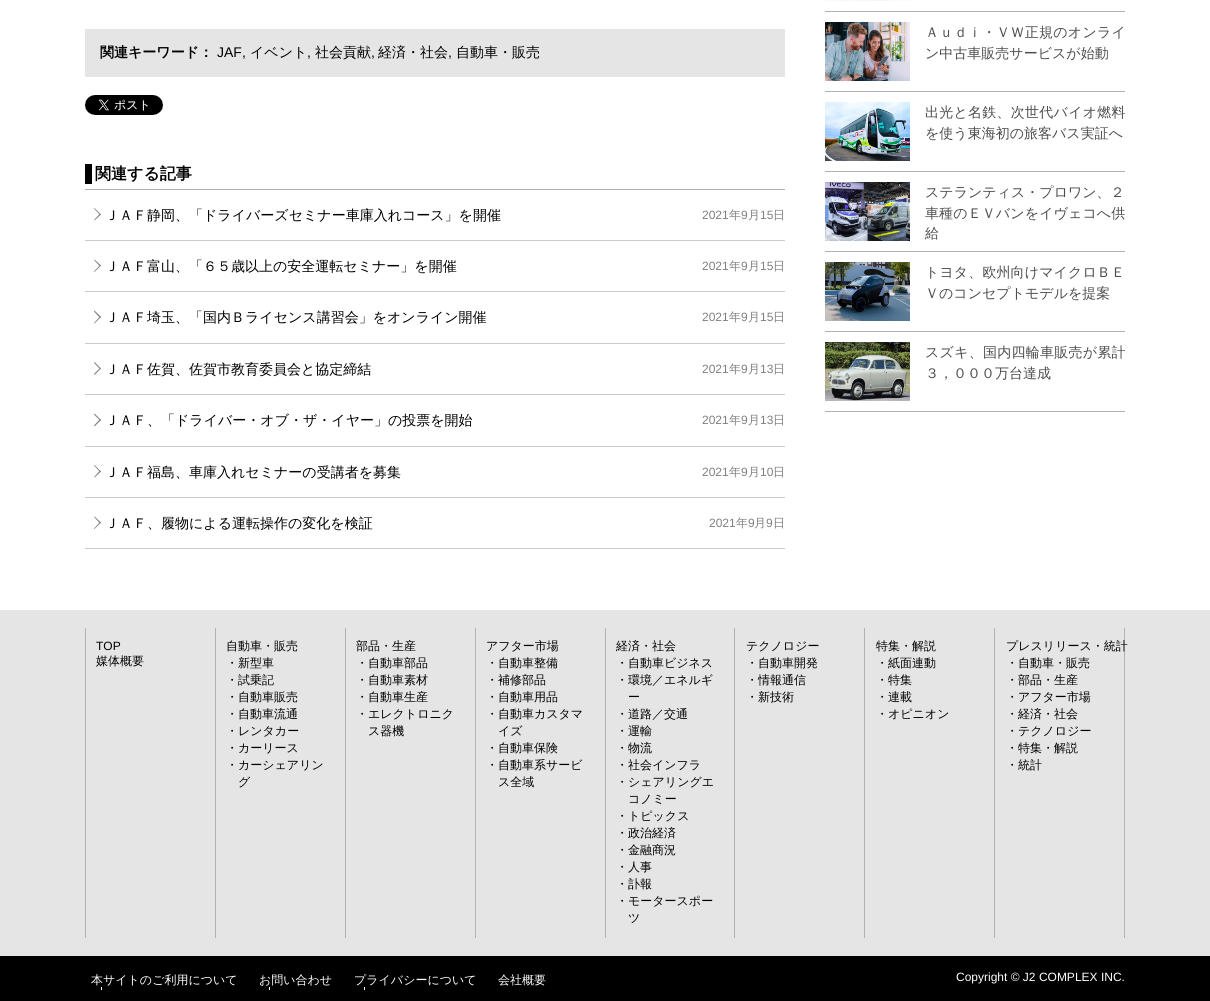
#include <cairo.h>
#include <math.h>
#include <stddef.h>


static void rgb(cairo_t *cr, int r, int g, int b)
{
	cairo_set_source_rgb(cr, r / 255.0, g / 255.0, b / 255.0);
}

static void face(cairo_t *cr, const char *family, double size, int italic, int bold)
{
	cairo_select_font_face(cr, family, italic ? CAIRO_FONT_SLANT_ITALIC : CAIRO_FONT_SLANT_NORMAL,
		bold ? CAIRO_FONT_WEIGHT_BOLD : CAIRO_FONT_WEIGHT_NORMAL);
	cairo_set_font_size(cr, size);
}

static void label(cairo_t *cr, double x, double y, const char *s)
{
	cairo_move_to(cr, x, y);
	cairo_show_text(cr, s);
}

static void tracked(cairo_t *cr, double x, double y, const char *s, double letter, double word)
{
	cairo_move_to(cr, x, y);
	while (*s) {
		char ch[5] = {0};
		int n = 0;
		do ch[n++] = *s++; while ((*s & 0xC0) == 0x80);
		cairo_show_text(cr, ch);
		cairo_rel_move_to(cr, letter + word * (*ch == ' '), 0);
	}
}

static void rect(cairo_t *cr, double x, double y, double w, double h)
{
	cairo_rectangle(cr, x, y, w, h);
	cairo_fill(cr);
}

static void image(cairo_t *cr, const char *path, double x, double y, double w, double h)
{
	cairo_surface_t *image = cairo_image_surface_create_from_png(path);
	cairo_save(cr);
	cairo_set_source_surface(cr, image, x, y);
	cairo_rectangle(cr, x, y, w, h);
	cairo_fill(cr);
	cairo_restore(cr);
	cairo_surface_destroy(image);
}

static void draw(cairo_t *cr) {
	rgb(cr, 255, 255, 255);
	cairo_paint(cr);
	rgb(cr, 229, 229, 229);
	rect(cr, 85, 29, 700, 48);
	face(cr, "WenQuanYi Zen Hei", 14, 0, 1);
	rgb(cr, 0, 0, 0);
	label(cr, 100, 57, "関連キーワード：");
	face(cr, "Liberation Sans", 14, 0, 0);
	label(cr, 217, 57, "JAF,");
	face(cr, "WenQuanYi Zen Hei Medium", 14, 0, 0);
	label(cr, 250, 57, "イベント");
	face(cr, "Liberation Sans", 14, 0, 0);
	label(cr, 307, 57, ",");
	face(cr, "WenQuanYi Zen Hei Medium", 14, 0, 0);
	label(cr, 315, 57, "社会貢献");
	face(cr, "Liberation Sans", 14, 0, 0);
	label(cr, 371, 57, ",");
	face(cr, "WenQuanYi Zen Hei Medium", 14, 0, 0);
	label(cr, 378, 57, "経済・社会");
	face(cr, "Liberation Sans", 14, 0, 0);
	label(cr, 448, 57, ",");
	face(cr, "WenQuanYi Zen Hei Medium", 14, 0, 0);
	label(cr, 456, 57, "自動車・販売");
	image(cr, "image0.png", 85, 95, 78, 20);
	rgb(cr, 178, 178, 178);
	rect(cr, 85, 189, 700, 1);
	rgb(cr, 0, 0, 0);
	rect(cr, 85, 164, 7, 20);
	face(cr, "WenQuanYi Zen Hei", 16, 0, 1);
	label(cr, 95, 179, "関連する記事");
	rgb(cr, 204, 204, 204);
	rect(cr, 85, 240, 700, 1);
	rgb(cr, 128, 128, 128);
	cairo_new_path(cr);
	cairo_move_to(cr, 94, 208.5);
	cairo_line_to(cr, 94.5, 208);
	cairo_line_to(cr, 101, 214.5);
	cairo_line_to(cr, 100, 215);
	cairo_close_path(cr);
	cairo_fill(cr);
	cairo_new_path(cr);
	cairo_move_to(cr, 94, 220);
	cairo_line_to(cr, 100, 213.5);
	cairo_line_to(cr, 101, 214.5);
	cairo_line_to(cr, 94.5, 220.5);
	cairo_close_path(cr);
	cairo_move_to(cr, 94, 260);
	cairo_line_to(cr, 94.5, 259.5);
	cairo_line_to(cr, 101, 265.5);
	cairo_line_to(cr, 100, 266.5);
	cairo_close_path(cr);
	cairo_fill(cr);
	face(cr, "WenQuanYi Zen Hei Medium", 14, 0, 0);
	rgb(cr, 0, 0, 0);
	label(cr, 105, 220, "ＪＡＦ静岡、「ドライバーズセミナー車庫入れコース」を開催");
	face(cr, "Liberation Sans", 12, 0, 0);
	rgb(cr, 128, 128, 128);
	label(cr, 702, 219, "2021");
	face(cr, "WenQuanYi Zen Hei Medium", 12, 0, 0);
	label(cr, 729, 219, "年");
	face(cr, "Liberation Sans", 12, 0, 0);
	label(cr, 741, 219, "9");
	face(cr, "WenQuanYi Zen Hei Medium", 12, 0, 0);
	label(cr, 748, 219, "月");
	face(cr, "Liberation Sans", 12, 0, 0);
	label(cr, 760, 219, "15");
	face(cr, "WenQuanYi Zen Hei Medium", 12, 0, 0);
	label(cr, 773, 219, "日");
	rgb(cr, 204, 204, 204);
	rect(cr, 85, 291, 700, 1);
	rgb(cr, 128, 128, 128);
	cairo_new_path(cr);
	cairo_move_to(cr, 94, 271.5);
	cairo_line_to(cr, 100, 265);
	cairo_line_to(cr, 101, 265.5);
	cairo_line_to(cr, 94.5, 272);
	cairo_close_path(cr);
	cairo_move_to(cr, 94, 311.5);
	cairo_line_to(cr, 94.5, 310.5);
	cairo_line_to(cr, 101, 317);
	cairo_line_to(cr, 100, 318);
	cairo_close_path(cr);
	cairo_fill(cr);
	face(cr, "WenQuanYi Zen Hei Medium", 14, 0, 0);
	rgb(cr, 0, 0, 0);
	label(cr, 105, 271, "ＪＡＦ富山、「６５歳以上の安全運転セミナー」を開催");
	face(cr, "Liberation Sans", 12, 0, 0);
	rgb(cr, 128, 128, 128);
	label(cr, 702, 270, "2021");
	face(cr, "WenQuanYi Zen Hei Medium", 12, 0, 0);
	label(cr, 729, 270, "年");
	face(cr, "Liberation Sans", 12, 0, 0);
	label(cr, 741, 270, "9");
	face(cr, "WenQuanYi Zen Hei Medium", 12, 0, 0);
	label(cr, 748, 270, "月");
	face(cr, "Liberation Sans", 12, 0, 0);
	label(cr, 760, 270, "15");
	face(cr, "WenQuanYi Zen Hei Medium", 12, 0, 0);
	label(cr, 773, 270, "日");
	rgb(cr, 204, 204, 204);
	rect(cr, 85, 343, 700, 1);
	rgb(cr, 128, 128, 128);
	cairo_new_path(cr);
	cairo_move_to(cr, 94, 323);
	cairo_line_to(cr, 100, 316.5);
	cairo_line_to(cr, 101, 317);
	cairo_line_to(cr, 94.5, 323.5);
	cairo_close_path(cr);
	cairo_move_to(cr, 94, 363);
	cairo_line_to(cr, 94.5, 362);
	cairo_line_to(cr, 101, 368.5);
	cairo_line_to(cr, 100, 369);
	cairo_close_path(cr);
	cairo_fill(cr);
	face(cr, "WenQuanYi Zen Hei Medium", 14, 0, 0);
	rgb(cr, 0, 0, 0);
	label(cr, 105, 322, "ＪＡＦ埼玉、「国内Ｂライセンス講習会」をオンライン開催");
	face(cr, "Liberation Sans", 12, 0, 0);
	rgb(cr, 128, 128, 128);
	label(cr, 702, 321, "2021");
	face(cr, "WenQuanYi Zen Hei Medium", 12, 0, 0);
	label(cr, 729, 321, "年");
	face(cr, "Liberation Sans", 12, 0, 0);
	label(cr, 741, 321, "9");
	face(cr, "WenQuanYi Zen Hei Medium", 12, 0, 0);
	label(cr, 748, 321, "月");
	face(cr, "Liberation Sans", 12, 0, 0);
	label(cr, 760, 321, "15");
	face(cr, "WenQuanYi Zen Hei Medium", 12, 0, 0);
	label(cr, 773, 321, "日");
	rgb(cr, 204, 204, 204);
	rect(cr, 85, 394, 700, 1);
	rgb(cr, 128, 128, 128);
	cairo_new_path(cr);
	cairo_move_to(cr, 94, 374);
	cairo_line_to(cr, 100, 368);
	cairo_line_to(cr, 101, 368.5);
	cairo_line_to(cr, 94.5, 375);
	cairo_close_path(cr);
	cairo_move_to(cr, 94, 414.5);
	cairo_line_to(cr, 94.5, 413.5);
	cairo_line_to(cr, 101, 420);
	cairo_line_to(cr, 100, 420.5);
	cairo_close_path(cr);
	cairo_fill(cr);
	face(cr, "WenQuanYi Zen Hei Medium", 14, 0, 0);
	rgb(cr, 0, 0, 0);
	label(cr, 105, 374, "ＪＡＦ佐賀、佐賀市教育委員会と協定締結");
	face(cr, "Liberation Sans", 12, 0, 0);
	rgb(cr, 128, 128, 128);
	label(cr, 702, 373, "2021");
	face(cr, "WenQuanYi Zen Hei Medium", 12, 0, 0);
	label(cr, 729, 373, "年");
	face(cr, "Liberation Sans", 12, 0, 0);
	label(cr, 741, 373, "9");
	face(cr, "WenQuanYi Zen Hei Medium", 12, 0, 0);
	label(cr, 748, 373, "月");
	face(cr, "Liberation Sans", 12, 0, 0);
	label(cr, 760, 373, "13");
	face(cr, "WenQuanYi Zen Hei Medium", 12, 0, 0);
	label(cr, 773, 373, "日");
	rgb(cr, 204, 204, 204);
	rect(cr, 85, 446, 700, 1);
	rgb(cr, 128, 128, 128);
	cairo_new_path(cr);
	cairo_move_to(cr, 94, 425.5);
	cairo_line_to(cr, 100, 419);
	cairo_line_to(cr, 101, 420);
	cairo_line_to(cr, 94.5, 426.5);
	cairo_close_path(cr);
	cairo_move_to(cr, 94, 465.5);
	cairo_line_to(cr, 94.5, 465);
	cairo_line_to(cr, 101, 471.5);
	cairo_line_to(cr, 100, 472);
	cairo_close_path(cr);
	cairo_fill(cr);
	face(cr, "WenQuanYi Zen Hei Medium", 14, 0, 0);
	rgb(cr, 0, 0, 0);
	label(cr, 105, 425, "ＪＡＦ、「ドライバー・オブ・ザ・イヤー」の投票を開始");
	face(cr, "Liberation Sans", 12, 0, 0);
	rgb(cr, 128, 128, 128);
	label(cr, 702, 424, "2021");
	face(cr, "WenQuanYi Zen Hei Medium", 12, 0, 0);
	label(cr, 729, 424, "年");
	face(cr, "Liberation Sans", 12, 0, 0);
	label(cr, 741, 424, "9");
	face(cr, "WenQuanYi Zen Hei Medium", 12, 0, 0);
	label(cr, 748, 424, "月");
	face(cr, "Liberation Sans", 12, 0, 0);
	label(cr, 760, 424, "13");
	face(cr, "WenQuanYi Zen Hei Medium", 12, 0, 0);
	label(cr, 773, 424, "日");
	rgb(cr, 204, 204, 204);
	rect(cr, 85, 497, 700, 1);
	rgb(cr, 128, 128, 128);
	cairo_new_path(cr);
	cairo_move_to(cr, 94, 477);
	cairo_line_to(cr, 100, 470.5);
	cairo_line_to(cr, 101, 471.5);
	cairo_line_to(cr, 94.5, 477.5);
	cairo_close_path(cr);
	cairo_move_to(cr, 94, 517);
	cairo_line_to(cr, 94.5, 516.5);
	cairo_line_to(cr, 101, 522.5);
	cairo_line_to(cr, 100, 523.5);
	cairo_close_path(cr);
	cairo_fill(cr);
	face(cr, "WenQuanYi Zen Hei Medium", 14, 0, 0);
	rgb(cr, 0, 0, 0);
	label(cr, 105, 477, "ＪＡＦ福島、車庫入れセミナーの受講者を募集");
	face(cr, "Liberation Sans", 12, 0, 0);
	rgb(cr, 128, 128, 128);
	label(cr, 702, 476, "2021");
	face(cr, "WenQuanYi Zen Hei Medium", 12, 0, 0);
	label(cr, 729, 476, "年");
	face(cr, "Liberation Sans", 12, 0, 0);
	label(cr, 741, 476, "9");
	face(cr, "WenQuanYi Zen Hei Medium", 12, 0, 0);
	label(cr, 748, 476, "月");
	face(cr, "Liberation Sans", 12, 0, 0);
	label(cr, 760, 476, "10");
	face(cr, "WenQuanYi Zen Hei Medium", 12, 0, 0);
	label(cr, 773, 476, "日");
	rgb(cr, 204, 204, 204);
	rect(cr, 85, 548, 700, 1);
	rgb(cr, 128, 128, 128);
	cairo_new_path(cr);
	cairo_move_to(cr, 94, 528.5);
	cairo_line_to(cr, 100, 522);
	cairo_line_to(cr, 101, 522.5);
	cairo_line_to(cr, 94.5, 529);
	cairo_close_path(cr);
	cairo_fill(cr);
	face(cr, "WenQuanYi Zen Hei Medium", 14, 0, 0);
	rgb(cr, 0, 0, 0);
	label(cr, 105, 528, "ＪＡＦ、履物による運転操作の変化を検証");
	face(cr, "Liberation Sans", 12, 0, 0);
	rgb(cr, 128, 128, 128);
	label(cr, 709, 527, "2021");
	face(cr, "WenQuanYi Zen Hei Medium", 12, 0, 0);
	label(cr, 736, 527, "年");
	face(cr, "Liberation Sans", 12, 0, 0);
	label(cr, 748, 527, "9");
	face(cr, "WenQuanYi Zen Hei Medium", 12, 0, 0);
	label(cr, 754, 527, "月");
	face(cr, "Liberation Sans", 12, 0, 0);
	label(cr, 766, 527, "9");
	face(cr, "WenQuanYi Zen Hei Medium", 12, 0, 0);
	label(cr, 773, 527, "日");
	rgb(cr, 178, 178, 178);
	rect(cr, 825, 11, 300, 1);
	image(cr, "image1.png", 825, 0, 85, 1);
	rect(cr, 825, 91, 300, 1);
	image(cr, "image2.png", 825, 22, 85, 59);
	face(cr, "WenQuanYi Zen Hei Medium", 14, 0, 0);
	rgb(cr, 77, 77, 77);
	tracked(cr, 925, 37, "Ａｕｄｉ・ＶＷ正規のオンライ", 0.25, 0);
	label(cr, 925, 58, "ン中古車販売サービスが始動");
	rgb(cr, 178, 178, 178);
	rect(cr, 825, 171, 300, 1);
	image(cr, "image3.png", 825, 102, 85, 59);
	rgb(cr, 77, 77, 77);
	tracked(cr, 925, 117, "出光と名鉄、次世代バイオ燃料", 0.25, 0);
	label(cr, 925, 138, "を使う東海初の旅客バス実証へ");
	rgb(cr, 178, 178, 178);
	rect(cr, 825, 251, 300, 1);
	image(cr, "image4.png", 825, 182, 85, 59);
	rgb(cr, 77, 77, 77);
	label(cr, 925, 197, "ステランティス・プロワン、２");
	tracked(cr, 925, 218, "車種のＥＶバンをイヴェコへ供", 0.1, 0);
	label(cr, 925, 238, "給");
	rgb(cr, 178, 178, 178);
	rect(cr, 825, 331, 300, 1);
	image(cr, "image5.png", 825, 262, 85, 59);
	rgb(cr, 77, 77, 77);
	tracked(cr, 925, 277, "トヨタ、欧州向けマイクロＢＥ", 0.1, 0);
	label(cr, 925, 298, "Ｖのコンセプトモデルを提案");
	rgb(cr, 178, 178, 178);
	rect(cr, 825, 411, 300, 1);
	image(cr, "image6.png", 825, 342, 85, 59);
	rgb(cr, 77, 77, 77);
	tracked(cr, 925, 357, "スズキ、国内四輪車販売が累計", 0.25, 0);
	label(cr, 925, 378, "３，０００万台達成");
	rgb(cr, 0, 0, 0);
	rect(cr, 0, 956, 1210, 45);
	rgb(cr, 229, 229, 229);
	rect(cr, 0, 610, 1210, 346);
	rgb(cr, 178, 178, 178);
	rect(cr, 85, 628, 1, 310);
	rect(cr, 215, 628, 1, 310);
	face(cr, "Liberation Sans", 12, 0, 0);
	rgb(cr, 0, 0, 0);
	label(cr, 96, 650, "TOP");
	face(cr, "WenQuanYi Zen Hei Medium", 12, 0, 0);
	label(cr, 96, 665, "媒体概要");
	rgb(cr, 178, 178, 178);
	rect(cr, 345, 628, 1, 310);
	rgb(cr, 0, 0, 0);
	label(cr, 226, 650, "自動車・販売");
	label(cr, 226, 667, "・新型車");
	label(cr, 226, 684, "・試乗記");
	label(cr, 226, 701, "・自動車販売");
	label(cr, 226, 718, "・自動車流通");
	label(cr, 226, 735, "・レンタカー");
	label(cr, 226, 752, "・カーリース");
	label(cr, 226, 769, "・カーシェアリン");
	label(cr, 238, 786, "グ");
	rgb(cr, 178, 178, 178);
	rect(cr, 475, 628, 1, 310);
	rgb(cr, 0, 0, 0);
	label(cr, 356, 650, "部品・生産");
	label(cr, 356, 667, "・自動車部品");
	label(cr, 356, 684, "・自動車素材");
	label(cr, 356, 701, "・自動車生産");
	label(cr, 356, 718, "・エレクトロニク");
	label(cr, 368, 735, "ス器機");
	rgb(cr, 178, 178, 178);
	rect(cr, 605, 628, 1, 310);
	rgb(cr, 0, 0, 0);
	label(cr, 486, 650, "アフター市場");
	label(cr, 486, 667, "・自動車整備");
	label(cr, 486, 684, "・補修部品");
	label(cr, 486, 701, "・自動車用品");
	label(cr, 486, 718, "・自動車カスタマ");
	label(cr, 498, 735, "イズ");
	label(cr, 486, 752, "・自動車保険");
	label(cr, 486, 769, "・自動車系サービ");
	label(cr, 498, 786, "ス全域");
	rgb(cr, 178, 178, 178);
	rect(cr, 734, 628, 1, 310);
	rgb(cr, 0, 0, 0);
	label(cr, 616, 650, "経済・社会");
	label(cr, 616, 667, "・自動車ビジネス");
	label(cr, 616, 684, "・環境／エネルギ");
	label(cr, 628, 701, "ー");
	label(cr, 616, 718, "・道路／交通");
	label(cr, 616, 735, "・運輸");
	label(cr, 616, 752, "・物流");
	label(cr, 616, 769, "・社会インフラ");
	label(cr, 616, 786, "・シェアリングエ");
	label(cr, 628, 803, "コノミー");
	label(cr, 616, 820, "・トピックス");
	label(cr, 616, 837, "・政治経済");
	label(cr, 616, 854, "・金融商況");
	label(cr, 616, 871, "・人事");
	label(cr, 616, 888, "・訃報");
	label(cr, 616, 905, "・モータースポー");
	label(cr, 628, 922, "ツ");
	rgb(cr, 178, 178, 178);
	rect(cr, 864, 628, 1, 310);
	rgb(cr, 0, 0, 0);
	label(cr, 746, 650, "テクノロジー");
	label(cr, 746, 667, "・自動車開発");
	label(cr, 746, 684, "・情報通信");
	label(cr, 746, 701, "・新技術");
	rgb(cr, 178, 178, 178);
	rect(cr, 994, 628, 1, 310);
	rgb(cr, 0, 0, 0);
	label(cr, 876, 650, "特集・解説");
	label(cr, 876, 667, "・紙面連動");
	label(cr, 876, 684, "・特集");
	label(cr, 876, 701, "・連載");
	label(cr, 876, 718, "・オピニオン");
	rgb(cr, 178, 178, 178);
	rect(cr, 1124, 628, 1, 310);
	rgb(cr, 0, 0, 0);
	label(cr, 1006, 650, "プレスリリース・統計");
	label(cr, 1006, 667, "・自動車・販売");
	label(cr, 1006, 684, "・部品・生産");
	label(cr, 1006, 701, "・アフター市場");
	label(cr, 1006, 718, "・経済・社会");
	label(cr, 1006, 735, "・テクノロジー");
	label(cr, 1006, 752, "・特集・解説");
	label(cr, 1006, 769, "・統計");
	rgb(cr, 255, 255, 255);
	label(cr, 91, 984, "本サイトのご利用について");
	rect(cr, 101, 987, 1, 3);
	label(cr, 259, 984, "お問い合わせ");
	rect(cr, 269, 987, 1, 3);
	label(cr, 354, 984, "プライバシーについて");
	rect(cr, 364, 987, 1, 3);
	label(cr, 498, 984, "会社概要");
	face(cr, "Liberation Sans", 12, 0, 0);
	label(cr, 956, 981, "Copyright © J2 COMPLEX INC.");
}

int main(void) {
	cairo_surface_t *surface = cairo_image_surface_create(CAIRO_FORMAT_RGB24, 1210, 1001);
	cairo_t *cr = cairo_create(surface);
	cairo_font_options_t *options = cairo_font_options_create();
	cairo_font_options_set_hint_metrics(options, CAIRO_HINT_METRICS_OFF);
	cairo_font_options_set_hint_style(options, CAIRO_HINT_STYLE_NONE);
	cairo_set_font_options(cr, options);
	cairo_set_miter_limit(cr, 4);
	draw(cr);
	cairo_surface_write_to_png(surface, "render.png");
	cairo_font_options_destroy(options);
	cairo_destroy(cr);
	cairo_surface_destroy(surface);
	return 0;
}
